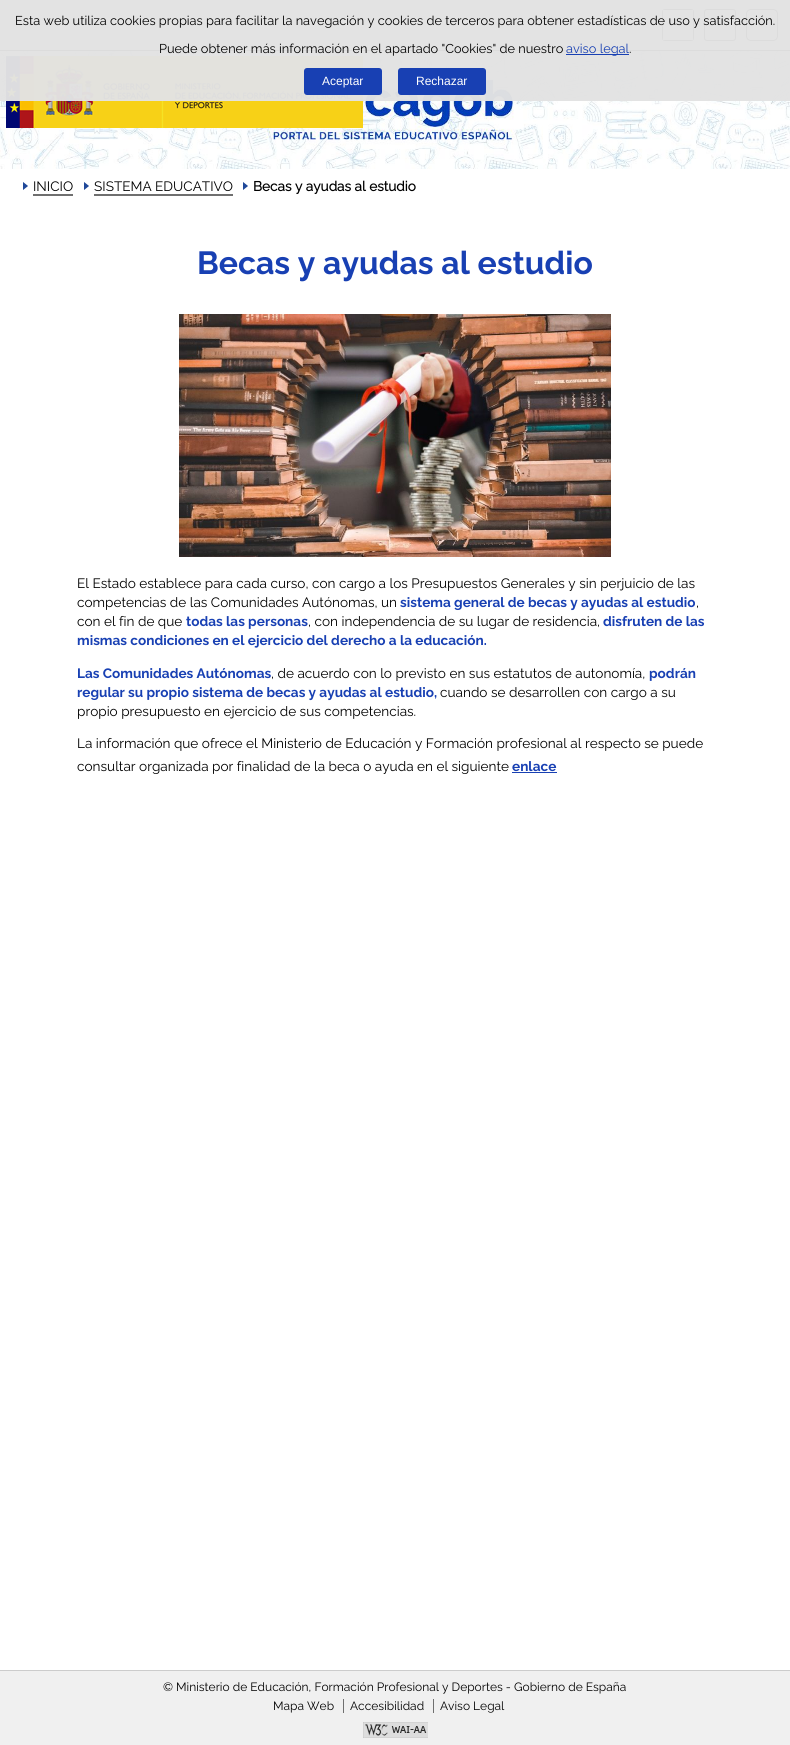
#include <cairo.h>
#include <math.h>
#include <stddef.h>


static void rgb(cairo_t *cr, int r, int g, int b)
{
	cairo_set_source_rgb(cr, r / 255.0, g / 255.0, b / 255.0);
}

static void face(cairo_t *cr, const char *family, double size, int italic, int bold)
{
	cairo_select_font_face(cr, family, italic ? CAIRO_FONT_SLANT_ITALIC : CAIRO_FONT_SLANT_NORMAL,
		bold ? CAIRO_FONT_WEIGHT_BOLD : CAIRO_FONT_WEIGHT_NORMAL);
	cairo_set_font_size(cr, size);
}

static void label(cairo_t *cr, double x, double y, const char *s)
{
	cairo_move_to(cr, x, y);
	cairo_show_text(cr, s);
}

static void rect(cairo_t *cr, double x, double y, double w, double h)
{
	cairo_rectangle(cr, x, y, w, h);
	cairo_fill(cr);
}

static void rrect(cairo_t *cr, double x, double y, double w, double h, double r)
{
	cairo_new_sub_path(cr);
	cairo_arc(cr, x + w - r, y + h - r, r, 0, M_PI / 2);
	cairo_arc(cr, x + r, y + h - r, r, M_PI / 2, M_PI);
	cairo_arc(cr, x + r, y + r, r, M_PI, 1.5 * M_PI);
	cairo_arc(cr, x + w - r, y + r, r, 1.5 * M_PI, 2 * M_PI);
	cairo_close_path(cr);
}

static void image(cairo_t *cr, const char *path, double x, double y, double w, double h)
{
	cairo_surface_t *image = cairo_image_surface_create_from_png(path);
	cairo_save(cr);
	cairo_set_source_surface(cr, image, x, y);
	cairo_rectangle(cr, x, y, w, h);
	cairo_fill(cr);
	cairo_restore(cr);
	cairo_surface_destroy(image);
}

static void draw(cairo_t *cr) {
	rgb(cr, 255, 255, 255);
	cairo_paint(cr);
	rgb(cr, 0, 0, 0);
	rect(cr, 0, 50, 790, 1);
	rrect(cr, 662.5, 9.5, 31, 31, 2.5);
	cairo_set_line_width(cr, 1);
	cairo_stroke(cr);
	rgb(cr, 255, 255, 255);
	rect(cr, 663, 10, 30, 30);
	rrect(cr, 704.5, 9.5, 31, 31, 2.5);
	rgb(cr, 0, 0, 0);
	cairo_stroke(cr);
	rrect(cr, 746.5, 9.5, 31, 31, 4.5);
	cairo_stroke(cr);
	image(cr, "image0.png", 0, 51, 790, 118);
	image(cr, "image1.png", 6, 56, 357, 72);
	cairo_set_source_rgba(cr, 0.886, 0.886, 0.886, 0.97);
	rect(cr, 0, 0, 790, 101);
	face(cr, "Raleway", 12.8, 0, 0);
	rgb(cr, 0, 0, 0);
	label(cr, 15, 25, "Esta web utiliza cookies propias para facilitar la navegación y cookies de terceros para obtener estadísticas de uso y satisfacción.");
	label(cr, 159, 53, "Puede obtener más información en el apartado \"Cookies\" de nuestro");
	rgb(cr, 24, 64, 179);
	rect(cr, 566, 54, 63, 1);
	label(cr, 566, 53, "aviso legal");
	rgb(cr, 0, 0, 0);
	label(cr, 629, 53, ".");
	rgb(cr, 24, 64, 179);
	rrect(cr, 304, 68, 78, 27, 3);
	cairo_fill(cr);
	face(cr, "Liberation Sans", 12, 0, 0);
	rgb(cr, 255, 255, 255);
	label(cr, 322, 85, "Aceptar");
	rgb(cr, 24, 64, 179);
	rrect(cr, 398, 68, 88, 27, 3);
	cairo_fill(cr);
	rgb(cr, 255, 255, 255);
	label(cr, 416, 85, "Rechazar");
	image(cr, "image2.png", 23, 182, 5, 8);
	face(cr, "Raleway", 13.6, 0, 0);
	rgb(cr, 0, 0, 0);
	label(cr, 33, 191, "INICIO");
	rgb(cr, 111, 111, 111);
	rect(cr, 33, 194, 40, 2);
	image(cr, "image2.png", 84, 182, 5, 8);
	rgb(cr, 0, 0, 0);
	label(cr, 94, 191, "SISTEMA EDUCATIVO");
	rgb(cr, 111, 111, 111);
	rect(cr, 94, 194, 139, 2);
	image(cr, "image2.png", 243, 182, 5, 8);
	face(cr, "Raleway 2", 13.6, 0, 1);
	rgb(cr, 0, 0, 0);
	label(cr, 253, 191, "Becas y ayudas al estudio");
	face(cr, "Raleway", 32, 0, 1);
	rgb(cr, 24, 64, 179);
	label(cr, 197, 274, "Becas y ayudas al estudio");
	image(cr, "image3.png", 179, 314, 432, 243);
	face(cr, "Raleway", 13.6, 0, 0);
	rgb(cr, 0, 0, 0);
	label(cr, 77, 588, "El Estado establece para cada curso, con cargo a los Presupuestos Generales y sin perjuicio de las");
	label(cr, 77, 607, "competencias de las Comunidades Autónomas, un");
	face(cr, "Raleway", 13.6, 0, 1);
	rgb(cr, 24, 64, 179);
	label(cr, 400, 607, "sistema general de becas y ayudas al estudio");
	face(cr, "Raleway", 13.6, 0, 0);
	rgb(cr, 0, 0, 0);
	label(cr, 696, 607, ",");
	label(cr, 77, 626, "con el fin de que");
	face(cr, "Raleway", 13.6, 0, 1);
	rgb(cr, 24, 64, 179);
	label(cr, 186, 626, "todas las personas");
	face(cr, "Raleway", 13.6, 0, 0);
	rgb(cr, 0, 0, 0);
	label(cr, 308, 626, ", con independencia de su lugar de residencia,");
	face(cr, "Raleway", 13.6, 0, 1);
	rgb(cr, 24, 64, 179);
	label(cr, 603, 626, "disfruten de las");
	label(cr, 77, 645, "mismas condiciones en el ejercicio del derecho a la educación.");
	label(cr, 77, 678, "Las Comunidades Autónomas");
	face(cr, "Raleway", 13.6, 0, 0);
	rgb(cr, 0, 0, 0);
	label(cr, 271, 678, ", de acuerdo con lo previsto en sus estatutos de autonomía,");
	face(cr, "Raleway", 13.6, 0, 1);
	rgb(cr, 24, 64, 179);
	label(cr, 649, 678, "podrán");
	label(cr, 77, 697, "regular su propio sistema de becas y ayudas al estudio,");
	face(cr, "Raleway", 13.6, 0, 0);
	rgb(cr, 0, 0, 0);
	label(cr, 440, 697, "cuando se desarrollen con cargo a su");
	label(cr, 77, 716, "propio presupuesto en ejercicio de sus competencias.");
	label(cr, 77, 748, "La información que ofrece el Ministerio de Educación y Formación profesional al respecto se puede");
	label(cr, 77, 771, "consultar organizada por finalidad de la beca o ayuda en el siguiente");
	face(cr, "Raleway", 13.6, 0, 1);
	rgb(cr, 24, 64, 179);
	label(cr, 512, 771, "enlace");
	rect(cr, 512, 772, 45, 1);
	rgb(cr, 240, 240, 240);
	rect(cr, 0, 1671, 790, 74);
	rgb(cr, 204, 204, 204);
	rect(cr, 0, 1670, 790, 1);
	face(cr, "Raleway", 12, 0, 0);
	rgb(cr, 0, 0, 0);
	label(cr, 163, 1691, "© Ministerio de Educación, Formación Profesional y Deportes - Gobierno de España");
	rgb(cr, 111, 111, 111);
	rect(cr, 343, 1699, 1, 14);
	rgb(cr, 0, 0, 0);
	label(cr, 273, 1710, "Mapa Web");
	rgb(cr, 111, 111, 111);
	rect(cr, 433, 1699, 1, 14);
	rgb(cr, 0, 0, 0);
	label(cr, 350, 1710, "Accesibilidad");
	label(cr, 440, 1710, "Aviso Legal");
	image(cr, "image4.png", 363, 1722, 65, 16);
}

int main(void) {
	cairo_surface_t *surface = cairo_image_surface_create(CAIRO_FORMAT_RGB24, 790, 1745);
	cairo_t *cr = cairo_create(surface);
	cairo_font_options_t *options = cairo_font_options_create();
	cairo_font_options_set_hint_metrics(options, CAIRO_HINT_METRICS_OFF);
	cairo_font_options_set_hint_style(options, CAIRO_HINT_STYLE_NONE);
	cairo_set_font_options(cr, options);
	cairo_set_miter_limit(cr, 4);
	draw(cr);
	cairo_surface_write_to_png(surface, "render.png");
	cairo_font_options_destroy(options);
	cairo_destroy(cr);
	cairo_surface_destroy(surface);
	return 0;
}
